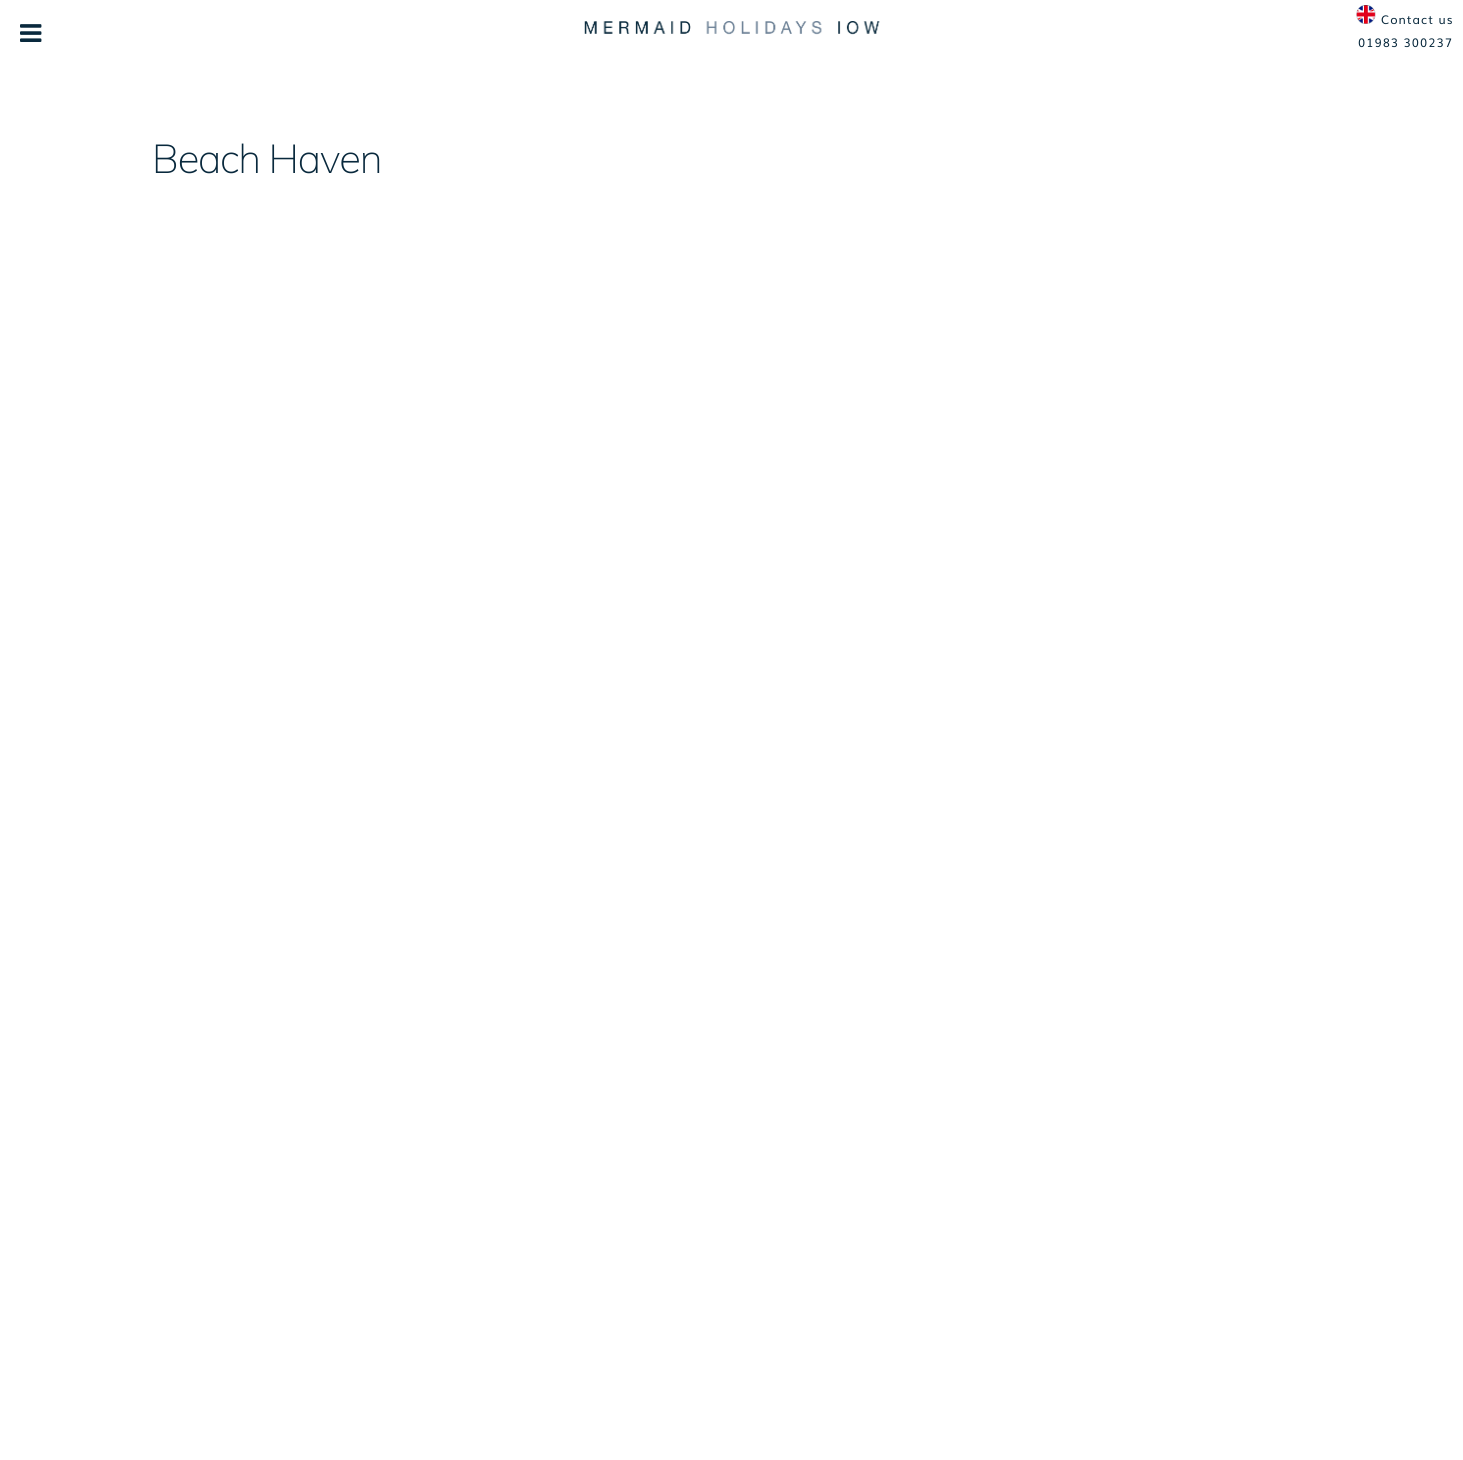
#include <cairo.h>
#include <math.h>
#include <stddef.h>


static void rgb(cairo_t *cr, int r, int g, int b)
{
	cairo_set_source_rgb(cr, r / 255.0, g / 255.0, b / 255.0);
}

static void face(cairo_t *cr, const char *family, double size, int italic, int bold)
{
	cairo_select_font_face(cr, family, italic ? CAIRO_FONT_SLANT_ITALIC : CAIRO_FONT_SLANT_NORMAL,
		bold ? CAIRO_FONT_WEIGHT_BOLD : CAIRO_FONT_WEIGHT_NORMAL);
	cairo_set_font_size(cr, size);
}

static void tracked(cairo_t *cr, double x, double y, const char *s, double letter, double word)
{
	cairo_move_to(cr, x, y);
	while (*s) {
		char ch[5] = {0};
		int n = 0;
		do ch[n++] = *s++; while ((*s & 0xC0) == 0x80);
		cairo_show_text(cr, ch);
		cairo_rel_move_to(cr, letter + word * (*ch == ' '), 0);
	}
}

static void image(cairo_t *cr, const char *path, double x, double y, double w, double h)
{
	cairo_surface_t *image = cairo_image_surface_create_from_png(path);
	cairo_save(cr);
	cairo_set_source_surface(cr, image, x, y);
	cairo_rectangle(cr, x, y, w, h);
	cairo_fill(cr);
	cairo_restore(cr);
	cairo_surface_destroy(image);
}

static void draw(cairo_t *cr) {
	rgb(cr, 255, 255, 255);
	cairo_paint(cr);
	image(cr, "image0.png", 20, 24, 22, 18);
	image(cr, "image1.png", 584, 21, 296, 14);
	image(cr, "image2.png", 1356, 5, 20, 19);
	face(cr, "Muli", 12, 0, 0);
	rgb(cr, 9, 41, 61);
	tracked(cr, 1381, 24, "Contact us", 1, 0);
	tracked(cr, 1358, 47, "01983 300237", 1, 0);
	face(cr, "Muli ExtraLight", 40, 0, 0);
	tracked(cr, 152, 173, "Beach Haven", -1.25, 0);
}

int main(void) {
	cairo_surface_t *surface = cairo_image_surface_create(CAIRO_FORMAT_RGB24, 1463, 1460);
	cairo_t *cr = cairo_create(surface);
	cairo_font_options_t *options = cairo_font_options_create();
	cairo_font_options_set_hint_metrics(options, CAIRO_HINT_METRICS_OFF);
	cairo_font_options_set_hint_style(options, CAIRO_HINT_STYLE_NONE);
	cairo_set_font_options(cr, options);
	cairo_set_miter_limit(cr, 4);
	draw(cr);
	cairo_surface_write_to_png(surface, "render.png");
	cairo_font_options_destroy(options);
	cairo_destroy(cr);
	cairo_surface_destroy(surface);
	return 0;
}
